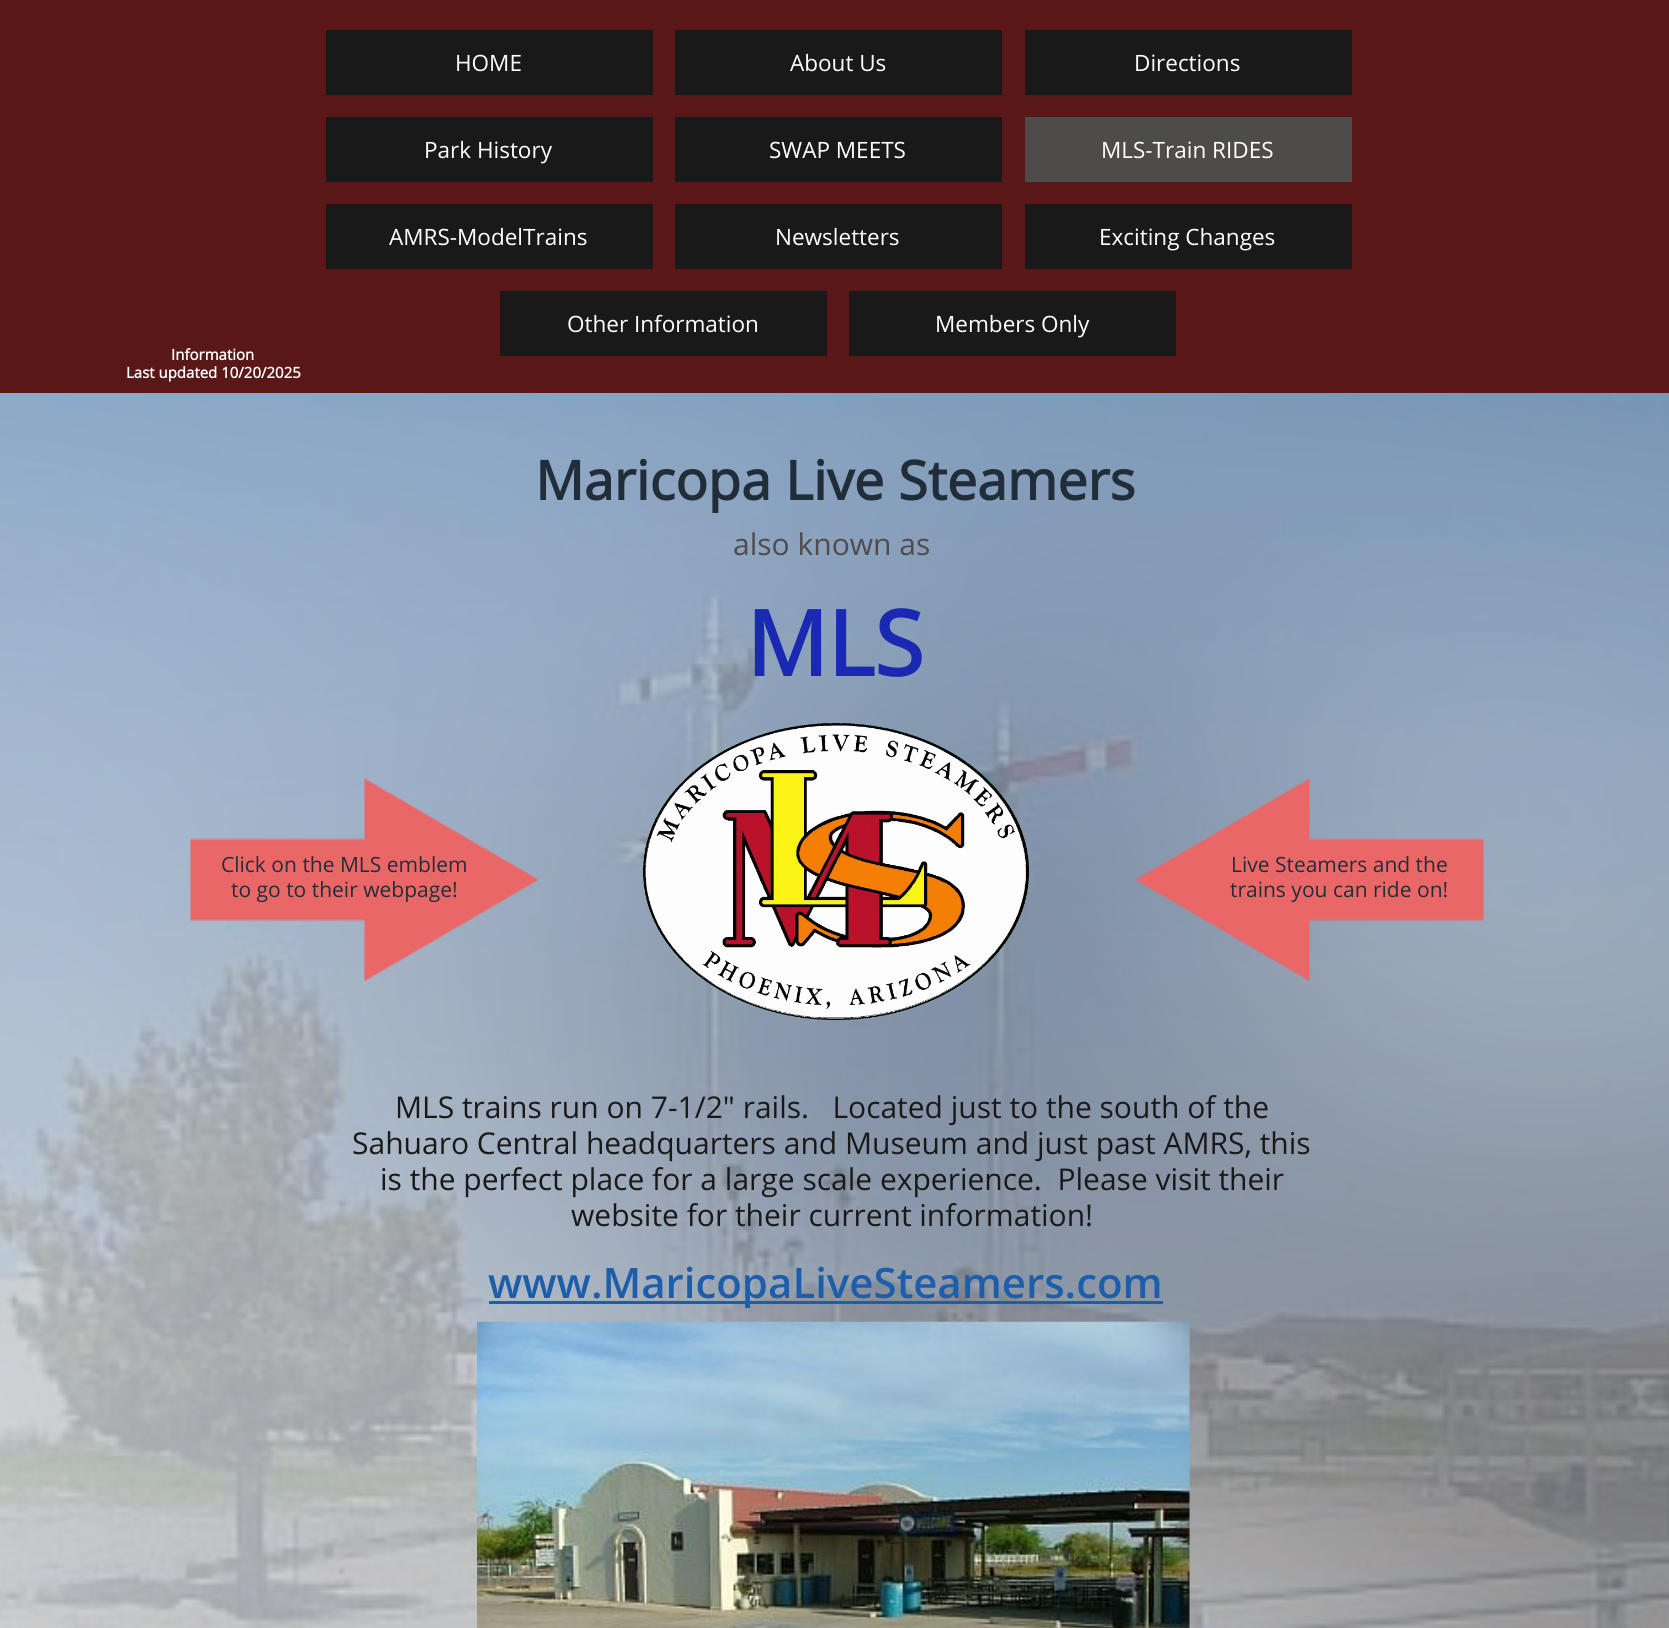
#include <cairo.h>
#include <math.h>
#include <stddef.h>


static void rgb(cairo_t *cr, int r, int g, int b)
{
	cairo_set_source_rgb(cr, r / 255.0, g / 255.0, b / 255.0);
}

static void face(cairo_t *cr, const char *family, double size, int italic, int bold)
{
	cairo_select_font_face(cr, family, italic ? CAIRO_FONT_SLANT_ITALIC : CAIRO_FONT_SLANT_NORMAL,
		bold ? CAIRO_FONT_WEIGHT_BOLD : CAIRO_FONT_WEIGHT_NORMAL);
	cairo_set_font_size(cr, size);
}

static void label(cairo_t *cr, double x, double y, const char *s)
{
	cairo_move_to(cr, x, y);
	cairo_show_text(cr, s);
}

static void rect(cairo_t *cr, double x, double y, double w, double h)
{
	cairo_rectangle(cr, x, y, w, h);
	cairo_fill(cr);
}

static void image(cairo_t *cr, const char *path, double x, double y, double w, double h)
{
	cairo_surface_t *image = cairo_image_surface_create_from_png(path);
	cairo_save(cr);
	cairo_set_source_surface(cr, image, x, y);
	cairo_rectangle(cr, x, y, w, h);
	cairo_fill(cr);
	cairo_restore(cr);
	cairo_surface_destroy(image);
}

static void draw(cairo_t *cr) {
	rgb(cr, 255, 255, 255);
	cairo_paint(cr);
	rgb(cr, 89, 23, 23);
	rect(cr, 0, 0, 1669, 393);
	rgb(cr, 26, 25, 25);
	rect(cr, 326, 30, 327, 65);
	face(cr, "Open Sans", 22.5, 0, 0);
	rgb(cr, 255, 255, 255);
	label(cr, 455, 71, "HOME");
	rgb(cr, 26, 25, 25);
	rect(cr, 675, 30, 327, 65);
	rgb(cr, 255, 255, 255);
	label(cr, 790, 71, "About Us");
	rgb(cr, 26, 25, 25);
	rect(cr, 1025, 30, 327, 65);
	rgb(cr, 255, 255, 255);
	label(cr, 1134, 71, "Directions");
	rgb(cr, 26, 25, 25);
	rect(cr, 326, 117, 327, 65);
	rgb(cr, 255, 255, 255);
	label(cr, 424, 158, "Park History");
	rgb(cr, 26, 25, 25);
	rect(cr, 675, 117, 327, 65);
	rgb(cr, 255, 255, 255);
	label(cr, 769, 158, "SWAP MEETS");
	rgb(cr, 78, 75, 75);
	rect(cr, 1025, 117, 327, 65);
	rgb(cr, 255, 255, 255);
	label(cr, 1101, 158, "MLS-Train RIDES");
	rgb(cr, 26, 25, 25);
	rect(cr, 326, 204, 327, 65);
	rgb(cr, 255, 255, 255);
	label(cr, 389, 245, "AMRS-ModelTrains");
	rgb(cr, 26, 25, 25);
	rect(cr, 675, 204, 327, 65);
	rgb(cr, 255, 255, 255);
	label(cr, 775, 245, "Newsletters");
	rgb(cr, 26, 25, 25);
	rect(cr, 1025, 204, 327, 65);
	rgb(cr, 255, 255, 255);
	label(cr, 1099, 245, "Exciting Changes");
	rgb(cr, 26, 25, 25);
	rect(cr, 500, 291, 327, 65);
	rgb(cr, 255, 255, 255);
	label(cr, 567, 332, "Other Information");
	rgb(cr, 26, 25, 25);
	rect(cr, 849, 291, 327, 65);
	rgb(cr, 255, 255, 255);
	label(cr, 935, 332, "Members Only");
	face(cr, "Open Sans", 15, 0, 1);
	label(cr, 171, 360, "Information");
	label(cr, 126, 378, "Last updated 10/20/2025");
	image(cr, "image5.png", 0, 393, 1669, 1235);
	image(cr, "image0.png", 0, 393, 1669, 1235);
	face(cr, "Open Sans", 54, 0, 1);
	rgb(cr, 34, 45, 58);
	label(cr, 535, 500, "Maricopa Live Steamers");
	face(cr, "Open Sans", 30, 0, 0);
	rgb(cr, 81, 75, 75);
	label(cr, 733, 555, "also known as");
	face(cr, "Open Sans", 90, 0, 1);
	rgb(cr, 25, 41, 177);
	label(cr, 746, 676, "MLS");
	image(cr, "image1.png", 190, 778, 349, 203);
	image(cr, "image2.png", 643, 723, 386, 297);
	image(cr, "image3.png", 1135, 778, 349, 203);
	face(cr, "Open Sans", 21, 0, 0);
	rgb(cr, 34, 45, 58);
	label(cr, 221, 872, "Click on the MLS emblem");
	label(cr, 231, 897, "to go to their webpage!");
	label(cr, 1231, 872, "Live Steamers and the");
	label(cr, 1230, 897, "trains you can ride on!");
	face(cr, "Open Sans", 30, 0, 0);
	rgb(cr, 26, 25, 25);
	label(cr, 395, 1118, "MLS trains run on 7-1/2\" rails.   Located just to the south of the");
	label(cr, 352, 1154, "Sahuaro Central headquarters and Museum and just past AMRS, this");
	label(cr, 380, 1190, "is the perfect place for a large scale experience.  Please visit their");
	label(cr, 571, 1226, "website for their current information!");
	rgb(cr, 29, 94, 171);
	rect(cr, 489, 1301, 674, 3);
	face(cr, "Open Sans SemiBold", 42, 0, 0);
	label(cr, 488, 1298, "www.MaricopaLiveSteamers.com");
	image(cr, "image4.png", 477, 1321, 713, 307);
}

int main(void) {
	cairo_surface_t *surface = cairo_image_surface_create(CAIRO_FORMAT_RGB24, 1669, 1628);
	cairo_t *cr = cairo_create(surface);
	cairo_font_options_t *options = cairo_font_options_create();
	cairo_font_options_set_hint_metrics(options, CAIRO_HINT_METRICS_OFF);
	cairo_font_options_set_hint_style(options, CAIRO_HINT_STYLE_NONE);
	cairo_set_font_options(cr, options);
	cairo_set_miter_limit(cr, 4);
	draw(cr);
	cairo_surface_write_to_png(surface, "render.png");
	cairo_font_options_destroy(options);
	cairo_destroy(cr);
	cairo_surface_destroy(surface);
	return 0;
}
